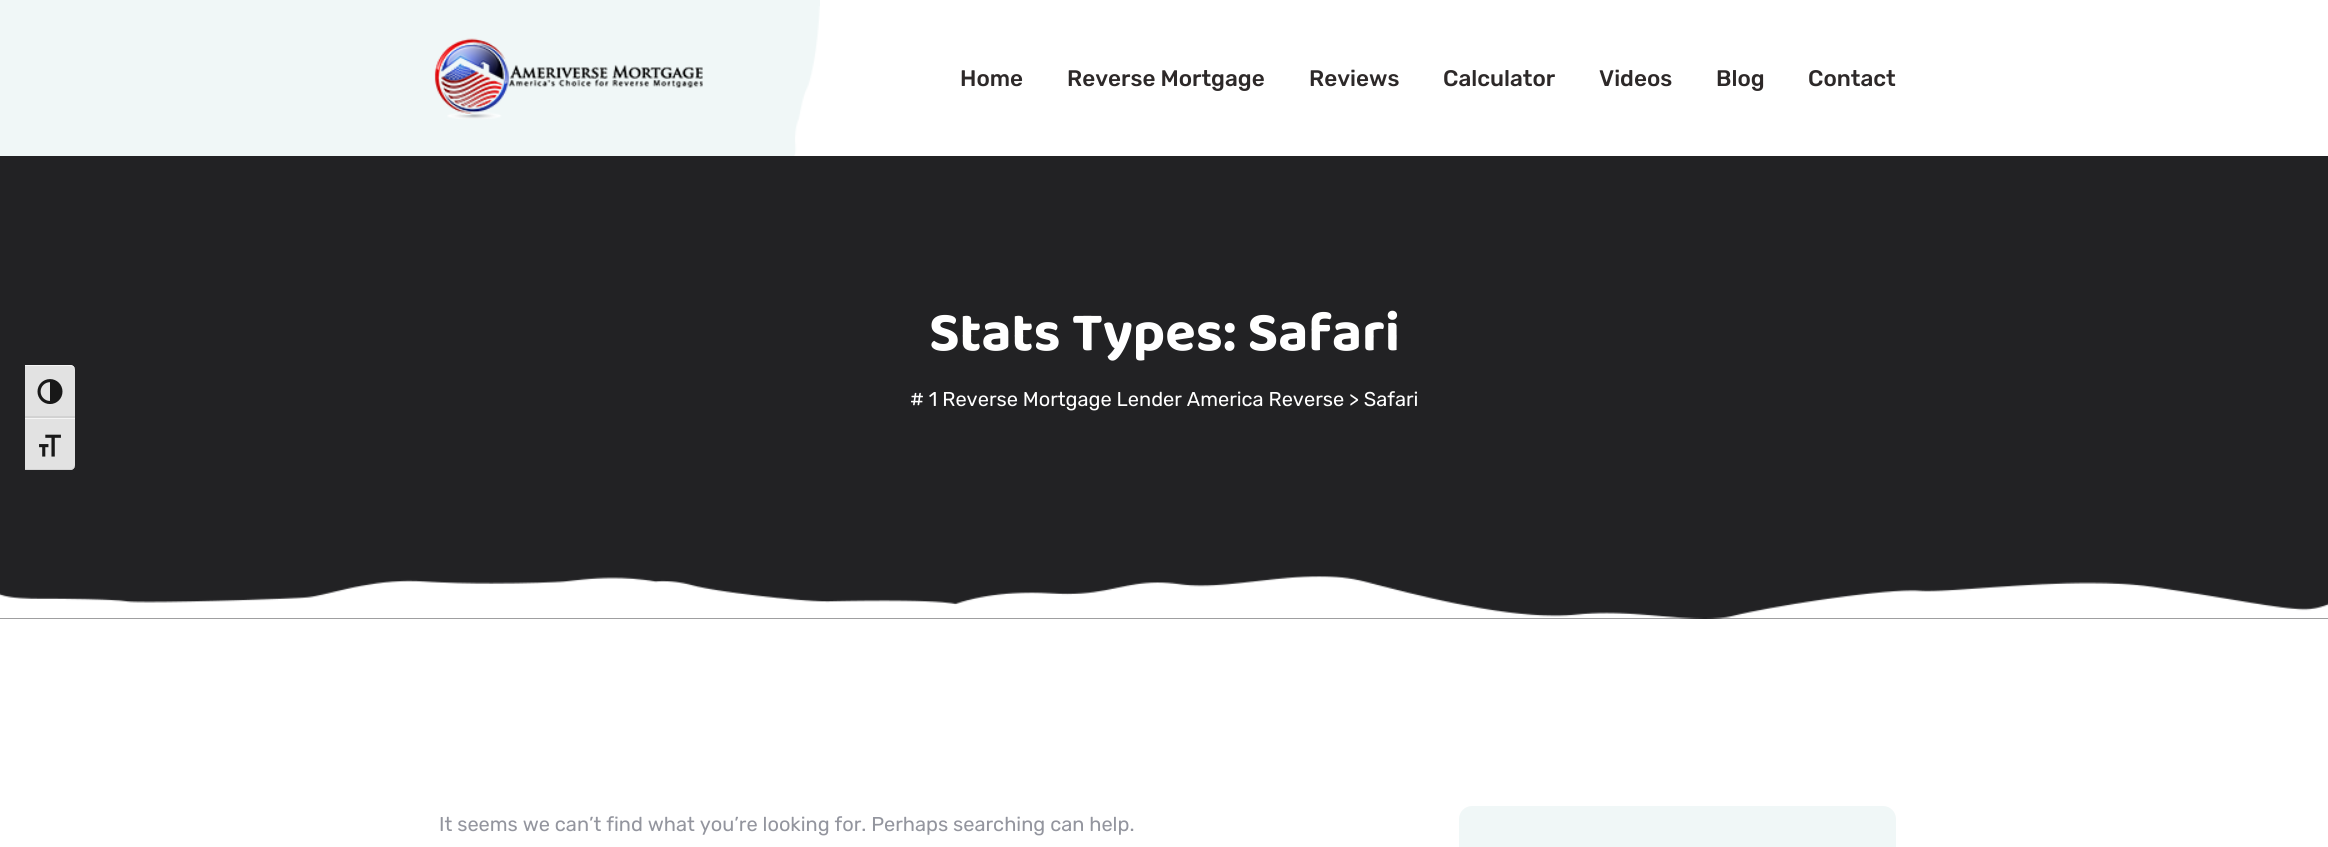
#include <cairo.h>
#include <math.h>
#include <stddef.h>


static void rgb(cairo_t *cr, int r, int g, int b)
{
	cairo_set_source_rgb(cr, r / 255.0, g / 255.0, b / 255.0);
}

static void face(cairo_t *cr, const char *family, double size, int italic, int bold)
{
	cairo_select_font_face(cr, family, italic ? CAIRO_FONT_SLANT_ITALIC : CAIRO_FONT_SLANT_NORMAL,
		bold ? CAIRO_FONT_WEIGHT_BOLD : CAIRO_FONT_WEIGHT_NORMAL);
	cairo_set_font_size(cr, size);
}

static void label(cairo_t *cr, double x, double y, const char *s)
{
	cairo_move_to(cr, x, y);
	cairo_show_text(cr, s);
}

static void rect(cairo_t *cr, double x, double y, double w, double h)
{
	cairo_rectangle(cr, x, y, w, h);
	cairo_fill(cr);
}

static void rrect(cairo_t *cr, double x, double y, double w, double h, double r)
{
	cairo_new_sub_path(cr);
	cairo_arc(cr, x + w - r, y + h - r, r, 0, M_PI / 2);
	cairo_arc(cr, x + r, y + h - r, r, M_PI / 2, M_PI);
	cairo_arc(cr, x + r, y + r, r, M_PI, 1.5 * M_PI);
	cairo_arc(cr, x + w - r, y + r, r, 1.5 * M_PI, 2 * M_PI);
	cairo_close_path(cr);
}

static void image(cairo_t *cr, const char *path, double x, double y, double w, double h)
{
	cairo_surface_t *image = cairo_image_surface_create_from_png(path);
	cairo_save(cr);
	cairo_set_source_surface(cr, image, x, y);
	cairo_rectangle(cr, x, y, w, h);
	cairo_fill(cr);
	cairo_restore(cr);
	cairo_surface_destroy(image);
}

static void draw(cairo_t *cr) {
	rgb(cr, 255, 255, 255);
	cairo_paint(cr);
	rgb(cr, 34, 34, 36);
	rect(cr, 0, 156, 2328, 463);
	rgb(cr, 226, 226, 226);
	cairo_new_path(cr);
	cairo_move_to(cr, 25, 365);
	cairo_line_to(cr, 70, 365);
	cairo_curve_to(cr, 73, 365, 75, 367, 75, 370);
	cairo_line_to(cr, 75, 418);
	cairo_line_to(cr, 25, 418);
	cairo_close_path(cr);
	cairo_fill(cr);
	rgb(cr, 245, 245, 245);
	cairo_new_path(cr);
	cairo_move_to(cr, 25, 365);
	cairo_line_to(cr, 25, 366);
	cairo_line_to(cr, 70, 366);
	cairo_curve_to(cr, 73, 366, 75, 368, 75, 370);
	cairo_curve_to(cr, 75, 367, 73, 365, 70, 365);
	cairo_close_path(cr);
	cairo_fill(cr);
	rgb(cr, 210, 210, 210);
	rect(cr, 25, 416, 50, 2);
	image(cr, "image0.png", 37, 379, 26, 25);
	rgb(cr, 226, 226, 226);
	cairo_new_path(cr);
	cairo_move_to(cr, 25, 418);
	cairo_line_to(cr, 75, 418);
	cairo_line_to(cr, 75, 465);
	cairo_curve_to(cr, 75, 468, 73, 470, 70, 470);
	cairo_line_to(cr, 25, 470);
	cairo_close_path(cr);
	cairo_fill(cr);
	rgb(cr, 245, 245, 245);
	rect(cr, 25, 418, 50, 1);
	rgb(cr, 210, 210, 210);
	cairo_new_path(cr);
	cairo_move_to(cr, 25, 469);
	cairo_line_to(cr, 25, 470);
	cairo_line_to(cr, 70, 470);
	cairo_curve_to(cr, 73, 470, 75, 468, 75, 465);
	cairo_curve_to(cr, 75, 467, 73, 469, 70, 469);
	cairo_close_path(cr);
	cairo_fill(cr);
	image(cr, "image1.png", 39, 434, 22, 23);
	rgb(cr, 240, 247, 247);
	rect(cr, 0, 0, 820, 156);
	image(cr, "image2.png", 434, 38, 269, 81);
	image(cr, "image3.png", 794, 6, 26, 150);
	face(cr, "Rubik Medium", 22.5, 0, 0);
	rgb(cr, 45, 41, 41);
	label(cr, 960, 86, "Home");
	label(cr, 1067, 86, "Reverse Mortgage");
	label(cr, 1309, 86, "Reviews");
	label(cr, 1443, 86, "Calculator");
	label(cr, 1599, 86, "Videos");
	label(cr, 1716, 86, "Blog");
	label(cr, 1808, 86, "Contact");
	face(cr, "Baloo 2", 56.25, 0, 1);
	rgb(cr, 255, 255, 255);
	label(cr, 929, 350, "Stats Types: Safari");
	face(cr, "Rubik", 20, 0, 0);
	label(cr, 910, 406, "# 1 Reverse Mortgage Lender America Reverse > Safari");
	image(cr, "image4.png", 0, 576, 2328, 43);
	rgb(cr, 147, 149, 158);
	label(cr, 439, 831, "It seems we can’t find what you’re looking for. Perhaps searching can help.");
	rgb(cr, 240, 247, 247);
	rrect(cr, 1459, 806, 437, 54, 13);
	cairo_fill(cr);
}

int main(void) {
	cairo_surface_t *surface = cairo_image_surface_create(CAIRO_FORMAT_RGB24, 2328, 847);
	cairo_t *cr = cairo_create(surface);
	cairo_font_options_t *options = cairo_font_options_create();
	cairo_font_options_set_hint_metrics(options, CAIRO_HINT_METRICS_OFF);
	cairo_font_options_set_hint_style(options, CAIRO_HINT_STYLE_NONE);
	cairo_set_font_options(cr, options);
	cairo_set_miter_limit(cr, 4);
	draw(cr);
	cairo_surface_write_to_png(surface, "render.png");
	cairo_font_options_destroy(options);
	cairo_destroy(cr);
	cairo_surface_destroy(surface);
	return 0;
}
